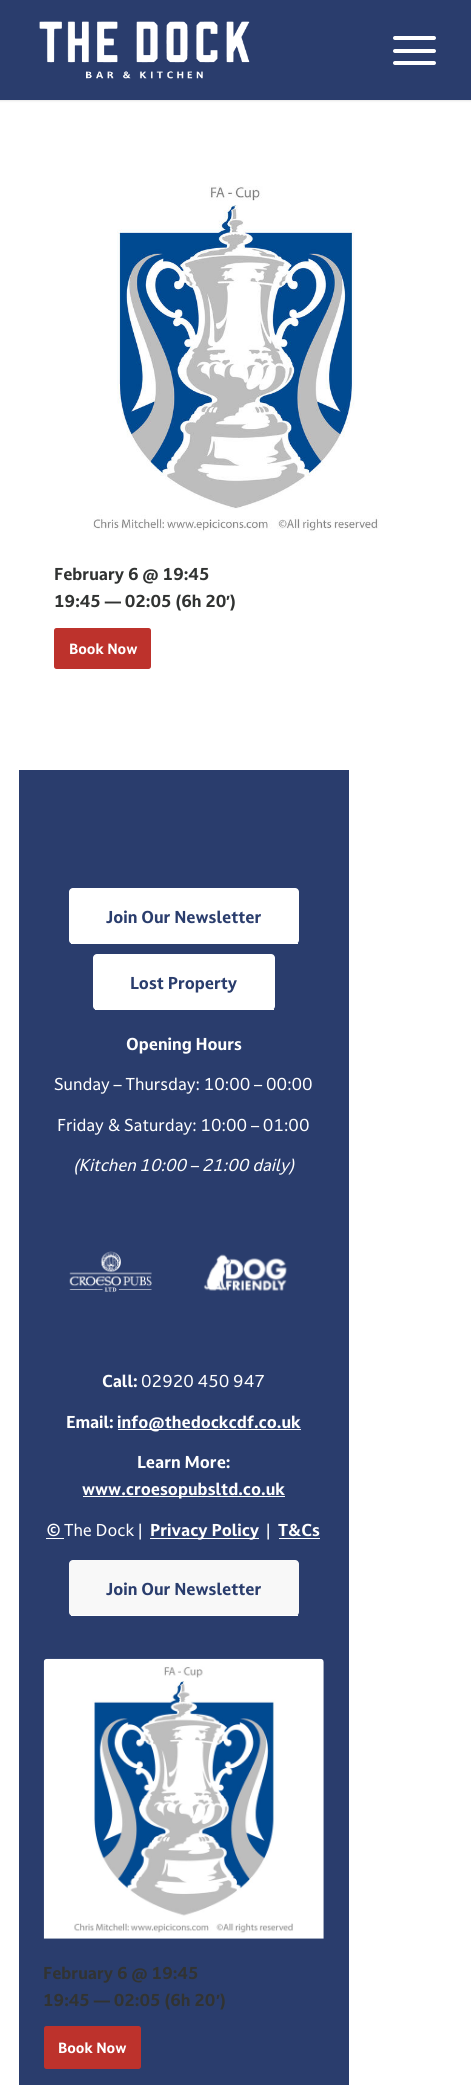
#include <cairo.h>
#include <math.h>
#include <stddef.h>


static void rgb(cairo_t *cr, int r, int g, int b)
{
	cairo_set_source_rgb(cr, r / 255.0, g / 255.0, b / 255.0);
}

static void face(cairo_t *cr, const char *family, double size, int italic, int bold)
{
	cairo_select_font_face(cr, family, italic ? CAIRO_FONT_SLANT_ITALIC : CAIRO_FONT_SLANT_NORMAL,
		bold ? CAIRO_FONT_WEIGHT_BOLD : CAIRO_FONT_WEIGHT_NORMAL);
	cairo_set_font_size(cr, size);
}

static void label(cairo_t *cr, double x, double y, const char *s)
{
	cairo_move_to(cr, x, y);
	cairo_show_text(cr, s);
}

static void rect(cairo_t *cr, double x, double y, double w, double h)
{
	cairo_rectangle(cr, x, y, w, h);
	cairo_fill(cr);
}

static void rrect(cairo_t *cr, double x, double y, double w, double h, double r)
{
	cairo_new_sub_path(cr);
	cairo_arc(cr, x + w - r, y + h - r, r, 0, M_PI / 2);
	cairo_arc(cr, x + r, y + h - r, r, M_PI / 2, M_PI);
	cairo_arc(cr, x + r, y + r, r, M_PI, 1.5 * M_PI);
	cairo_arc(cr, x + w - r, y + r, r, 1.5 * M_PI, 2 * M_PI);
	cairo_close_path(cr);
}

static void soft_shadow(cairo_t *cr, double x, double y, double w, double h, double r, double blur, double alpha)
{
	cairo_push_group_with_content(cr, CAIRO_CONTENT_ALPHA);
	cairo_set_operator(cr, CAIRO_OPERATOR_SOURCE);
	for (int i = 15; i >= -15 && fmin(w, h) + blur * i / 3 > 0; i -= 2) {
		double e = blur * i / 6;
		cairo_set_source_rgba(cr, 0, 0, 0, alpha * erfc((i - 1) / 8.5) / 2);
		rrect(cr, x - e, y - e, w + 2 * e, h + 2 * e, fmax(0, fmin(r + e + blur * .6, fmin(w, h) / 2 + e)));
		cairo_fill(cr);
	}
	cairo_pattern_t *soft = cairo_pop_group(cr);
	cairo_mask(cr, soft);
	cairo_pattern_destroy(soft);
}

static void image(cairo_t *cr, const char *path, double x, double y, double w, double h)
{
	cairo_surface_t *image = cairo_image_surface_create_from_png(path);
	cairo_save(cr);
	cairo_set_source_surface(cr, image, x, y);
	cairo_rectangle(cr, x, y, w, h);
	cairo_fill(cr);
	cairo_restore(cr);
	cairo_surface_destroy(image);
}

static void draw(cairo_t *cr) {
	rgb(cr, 255, 255, 255);
	cairo_paint(cr);
	rgb(cr, 0, 0, 0);
	soft_shadow(cr, -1, -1, 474, 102, 0, 1, 0.1);
	rgb(cr, 42, 61, 109);
	rect(cr, 0, 0, 471, 100);
	image(cr, "image0.png", 39, 21, 211, 58);
	rgb(cr, 255, 255, 255);
	rrect(cr, 393, 49, 43, 4, 2);
	cairo_fill(cr);
	rrect(cr, 393, 36, 43, 4, 2);
	cairo_fill(cr);
	rrect(cr, 393, 61, 43, 4, 2);
	cairo_fill(cr);
	image(cr, "image1.png", 93, 186, 286, 346);
	face(cr, "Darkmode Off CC", 16.25, 0, 1);
	rgb(cr, 49, 51, 50);
	label(cr, 54, 580, "February 6 @ 19:45");
	label(cr, 54, 607, "19:45 — 02:05 (6h 20");
	face(cr, "Liberation Sans", 16.25, 0, 1);
	label(cr, 226, 607, "′");
	face(cr, "Darkmode Off CC", 16.25, 0, 1);
	label(cr, 230, 607, ")");
	rgb(cr, 189, 50, 44);
	rrect(cr, 54, 628, 97, 41, 2.5);
	cairo_fill(cr);
	face(cr, "Darkmode Off CC", 14, 0, 1);
	rgb(cr, 255, 255, 255);
	label(cr, 69, 654, "Book Now");
	rgb(cr, 42, 61, 109);
	rect(cr, 19, 770, 330, 1315);
	rgb(cr, 255, 255, 255);
	rrect(cr, 69, 888, 230, 56, 4);
	cairo_fill(cr);
	rect(cr, 71, 943, 227, 1);
	face(cr, "Darkmode Off CC", 16.25, 0, 1);
	rgb(cr, 42, 61, 109);
	label(cr, 106, 923, "Join Our Newsletter");
	rgb(cr, 255, 255, 255);
	rrect(cr, 93, 954, 182, 56, 4);
	cairo_fill(cr);
	rect(cr, 95, 1009, 179, 1);
	rgb(cr, 42, 61, 109);
	label(cr, 130, 989, "Lost Property");
	rgb(cr, 255, 255, 255);
	label(cr, 126, 1050, "Opening Hours");
	face(cr, "Darkmode Off CC", 16.25, 0, 0);
	label(cr, 54, 1090, "Sunday – Thursday: 10:00 – 00:00");
	label(cr, 57, 1131, "Friday & Saturday: 10:00 – 01:00");
	face(cr, "Darkmode Off CC", 16.25, 1, 0);
	label(cr, 73, 1171, "(Kitchen 10:00 – 21:00 daily)");
	image(cr, "image2.png", 69, 1251, 83, 41);
	image(cr, "image3.png", 203, 1254, 85, 37);
	face(cr, "Darkmode Off CC", 16.25, 0, 1);
	label(cr, 102, 1387, "Call:");
	face(cr, "Darkmode Off CC", 16.25, 0, 0);
	label(cr, 141, 1387, "02920 450 947");
	face(cr, "Darkmode Off CC", 16.25, 0, 1);
	label(cr, 66, 1428, "Email:");
	rect(cr, 118, 1429, 183, 1);
	label(cr, 117, 1428, "info@thedockcdf.co.uk");
	label(cr, 137, 1468, "Learn More:");
	rect(cr, 83, 1496, 202, 1);
	label(cr, 82, 1495, "www.croesopubsltd.co.uk");
	label(cr, 47, 1536, "©");
	rect(cr, 46, 1538, 18, 1);
	face(cr, "Darkmode Off CC", 16.25, 0, 0);
	label(cr, 64, 1536, "The Dock |");
	rect(cr, 150, 1538, 109, 1);
	face(cr, "Darkmode Off CC", 16.25, 0, 1);
	label(cr, 150, 1536, "Privacy Policy");
	face(cr, "Darkmode Off CC", 16.25, 0, 0);
	label(cr, 266, 1536, "|");
	face(cr, "Darkmode Off CC", 16.25, 0, 1);
	label(cr, 278, 1536, "T&Cs");
	rect(cr, 279, 1538, 41, 1);
	rgb(cr, 248, 248, 248);
	rrect(cr, 69, 1560, 230, 56, 4);
	cairo_fill(cr);
	rgb(cr, 255, 255, 255);
	rect(cr, 71, 1615, 227, 1);
	rgb(cr, 42, 61, 109);
	label(cr, 106, 1595, "Join Our Newsletter");
	image(cr, "image4.png", 43, 1658, 281, 281);
	rgb(cr, 49, 51, 50);
	label(cr, 43, 1979, "February 6 @ 19:45");
	label(cr, 43, 2006, "19:45 — 02:05 (6h 20");
	face(cr, "Liberation Sans", 16.25, 0, 1);
	label(cr, 216, 2006, "′");
	face(cr, "Darkmode Off CC", 16.25, 0, 1);
	label(cr, 220, 2006, ")");
	rgb(cr, 189, 50, 44);
	rrect(cr, 44, 2026, 97, 43, 2.5);
	cairo_fill(cr);
	face(cr, "Darkmode Off CC", 14, 0, 1);
	rgb(cr, 255, 255, 255);
	label(cr, 58, 2053, "Book Now");
}

int main(void) {
	cairo_surface_t *surface = cairo_image_surface_create(CAIRO_FORMAT_RGB24, 471, 2085);
	cairo_t *cr = cairo_create(surface);
	cairo_font_options_t *options = cairo_font_options_create();
	cairo_font_options_set_hint_metrics(options, CAIRO_HINT_METRICS_OFF);
	cairo_font_options_set_hint_style(options, CAIRO_HINT_STYLE_NONE);
	cairo_set_font_options(cr, options);
	cairo_set_miter_limit(cr, 4);
	draw(cr);
	cairo_surface_write_to_png(surface, "render.png");
	cairo_font_options_destroy(options);
	cairo_destroy(cr);
	cairo_surface_destroy(surface);
	return 0;
}
